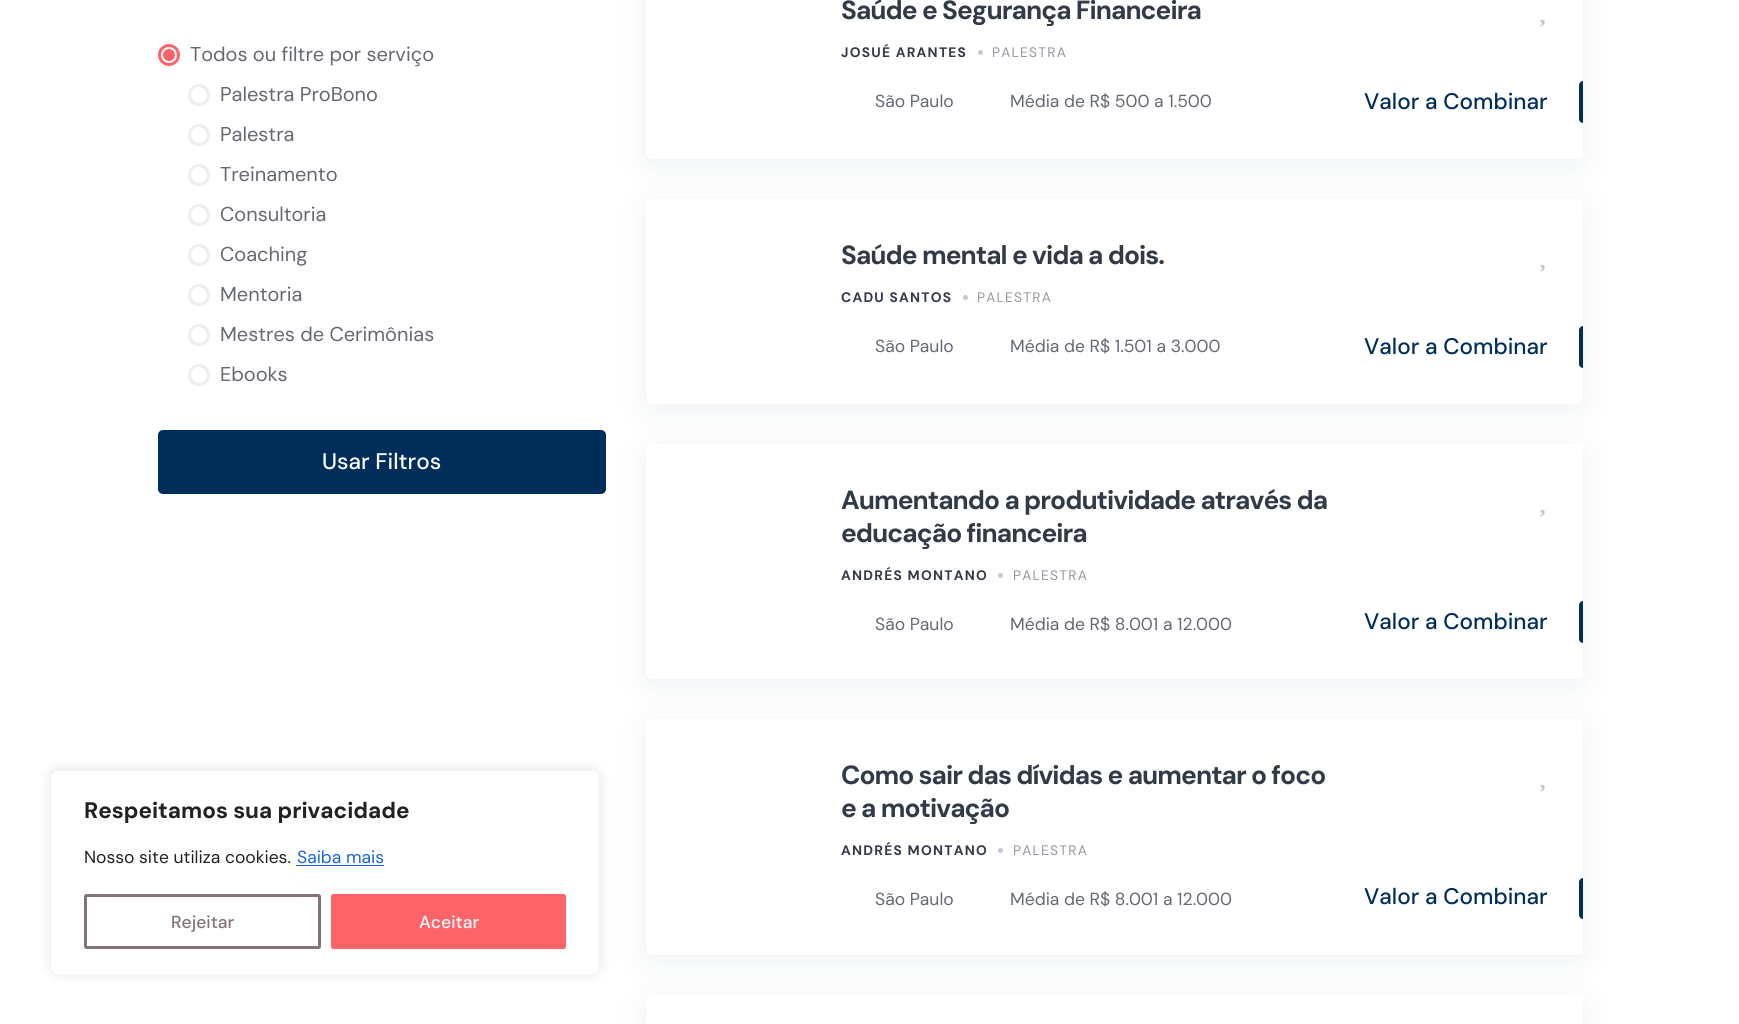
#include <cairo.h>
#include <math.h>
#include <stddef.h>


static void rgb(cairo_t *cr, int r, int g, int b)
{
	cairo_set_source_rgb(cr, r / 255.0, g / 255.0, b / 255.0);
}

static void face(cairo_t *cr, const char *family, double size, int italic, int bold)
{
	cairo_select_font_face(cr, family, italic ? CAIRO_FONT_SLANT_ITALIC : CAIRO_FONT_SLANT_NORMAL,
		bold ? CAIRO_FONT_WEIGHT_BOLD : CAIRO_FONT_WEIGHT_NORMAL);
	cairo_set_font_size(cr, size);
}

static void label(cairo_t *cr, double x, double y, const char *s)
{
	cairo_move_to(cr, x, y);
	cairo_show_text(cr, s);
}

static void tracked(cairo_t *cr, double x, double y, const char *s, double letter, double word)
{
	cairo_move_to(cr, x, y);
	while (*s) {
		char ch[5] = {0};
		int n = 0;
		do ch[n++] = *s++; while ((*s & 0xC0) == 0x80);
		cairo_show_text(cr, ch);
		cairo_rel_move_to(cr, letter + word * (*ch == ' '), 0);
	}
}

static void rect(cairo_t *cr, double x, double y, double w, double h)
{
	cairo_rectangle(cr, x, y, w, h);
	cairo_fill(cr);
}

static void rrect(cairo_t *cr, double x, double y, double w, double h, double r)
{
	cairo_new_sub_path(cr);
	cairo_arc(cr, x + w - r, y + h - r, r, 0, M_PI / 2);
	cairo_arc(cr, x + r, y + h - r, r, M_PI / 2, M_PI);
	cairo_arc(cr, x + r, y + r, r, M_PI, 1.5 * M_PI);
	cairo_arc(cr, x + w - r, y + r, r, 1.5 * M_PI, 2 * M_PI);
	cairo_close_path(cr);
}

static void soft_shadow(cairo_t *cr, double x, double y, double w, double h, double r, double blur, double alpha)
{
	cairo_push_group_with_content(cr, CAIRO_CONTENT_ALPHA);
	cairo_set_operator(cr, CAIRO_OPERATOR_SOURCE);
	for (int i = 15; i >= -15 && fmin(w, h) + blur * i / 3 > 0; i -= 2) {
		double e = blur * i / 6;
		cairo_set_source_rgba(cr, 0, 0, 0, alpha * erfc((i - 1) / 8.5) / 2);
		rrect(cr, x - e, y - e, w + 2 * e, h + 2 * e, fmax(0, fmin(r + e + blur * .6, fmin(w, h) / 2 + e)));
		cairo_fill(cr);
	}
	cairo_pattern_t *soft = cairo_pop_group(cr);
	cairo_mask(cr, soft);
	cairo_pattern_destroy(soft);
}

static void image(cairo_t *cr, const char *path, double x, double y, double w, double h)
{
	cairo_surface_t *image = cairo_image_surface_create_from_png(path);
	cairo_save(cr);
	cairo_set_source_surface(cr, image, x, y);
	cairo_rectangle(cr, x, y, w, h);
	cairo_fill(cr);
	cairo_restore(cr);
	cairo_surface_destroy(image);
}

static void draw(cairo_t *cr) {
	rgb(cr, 255, 255, 255);
	cairo_paint(cr);
	cairo_arc(cr, 169, 55, 9.5, 0, 2 * M_PI);
	rgb(cr, 255, 99, 106);
	cairo_set_line_width(cr, 3);
	cairo_stroke(cr);
	face(cr, "DM Sans", 20, 0, 0);
	rgb(cr, 99, 104, 115);
	label(cr, 190, 61, "Todos ou filtre por serviço");
	rgb(cr, 255, 99, 106);
	cairo_new_path(cr);
	cairo_arc(cr, 169, 55, 6, 0, 2 * M_PI);
	cairo_fill(cr);
	cairo_arc(cr, 199, 95, 9.5, 0, 2 * M_PI);
	rgb(cr, 236, 239, 242);
	cairo_stroke(cr);
	rgb(cr, 99, 104, 115);
	label(cr, 220, 101, "Palestra ProBono");
	cairo_new_path(cr);
	cairo_arc(cr, 199, 135, 9.5, 0, 2 * M_PI);
	rgb(cr, 236, 239, 242);
	cairo_stroke(cr);
	rgb(cr, 99, 104, 115);
	label(cr, 220, 141, "Palestra");
	cairo_new_path(cr);
	cairo_arc(cr, 199, 175, 9.5, 0, 2 * M_PI);
	rgb(cr, 236, 239, 242);
	cairo_stroke(cr);
	rgb(cr, 99, 104, 115);
	label(cr, 220, 181, "Treinamento");
	cairo_new_path(cr);
	cairo_arc(cr, 199, 215, 9.5, 0, 2 * M_PI);
	rgb(cr, 236, 239, 242);
	cairo_stroke(cr);
	rgb(cr, 99, 104, 115);
	label(cr, 220, 221, "Consultoria");
	cairo_new_path(cr);
	cairo_arc(cr, 199, 255, 9.5, 0, 2 * M_PI);
	rgb(cr, 236, 239, 242);
	cairo_stroke(cr);
	rgb(cr, 99, 104, 115);
	label(cr, 220, 261, "Coaching");
	cairo_new_path(cr);
	cairo_arc(cr, 199, 295, 9.5, 0, 2 * M_PI);
	rgb(cr, 236, 239, 242);
	cairo_stroke(cr);
	rgb(cr, 99, 104, 115);
	label(cr, 220, 301, "Mentoria");
	cairo_new_path(cr);
	cairo_arc(cr, 199, 335, 9.5, 0, 2 * M_PI);
	rgb(cr, 236, 239, 242);
	cairo_stroke(cr);
	rgb(cr, 99, 104, 115);
	label(cr, 220, 341, "Mestres de Cerimônias");
	cairo_new_path(cr);
	cairo_arc(cr, 199, 375, 9.5, 0, 2 * M_PI);
	rgb(cr, 236, 239, 242);
	cairo_stroke(cr);
	rgb(cr, 99, 104, 115);
	label(cr, 220, 381, "Ebooks");
	rgb(cr, 7, 36, 86);
	soft_shadow(cr, 646, -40, 937, 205, 5, 19, 0.07);
	rgb(cr, 255, 255, 255);
	rrect(cr, 646, -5, 937, 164, 5);
	cairo_fill(cr);
	rgb(cr, 7, 36, 86);
	soft_shadow(cr, 646, 205, 937, 205, 5, 19, 0.07);
	rgb(cr, 255, 255, 255);
	rrect(cr, 646, 199, 937, 205, 5);
	cairo_fill(cr);
	rgb(cr, 7, 36, 86);
	soft_shadow(cr, 646, 450, 937, 235, 5, 19, 0.07);
	rgb(cr, 0, 46, 91);
	rrect(cr, 158, 430, 448, 64, 5);
	cairo_fill(cr);
	face(cr, "DM Sans Medium", 22.5, 0, 0);
	rgb(cr, 255, 255, 255);
	label(cr, 322, 469, "Usar Filtros");
	face(cr, "DM Sans", 26.25, 0, 1);
	rgb(cr, 51, 58, 71);
	tracked(cr, 841, 19, "Saúde e Segurança Financeira", -0.95, 0);
	face(cr, "DM Sans", 13.75, 0, 1);
	tracked(cr, 841, 57, "JOSUÉ ARANTES", 1.25, 0);
	rgb(cr, 193, 200, 213);
	cairo_new_path(cr);
	cairo_arc(cr, 980.5, 52.5, 2.5, 0, 2 * M_PI);
	cairo_fill(cr);
	face(cr, "DM Sans", 13.75, 0, 0);
	rgb(cr, 147, 151, 158);
	tracked(cr, 992, 57, "PALESTRA", 1.25, 0);
	face(cr, "DM Sans", 17.5, 0, 0);
	rgb(cr, 99, 104, 115);
	label(cr, 875, 107, "São Paulo");
	label(cr, 1010, 107, "Média de R$ 500 a 1.500");
	image(cr, "image0.png", 1540, 19, 5, 8);
	face(cr, "DM Sans Medium", 22.5, 0, 0);
	rgb(cr, 0, 46, 91);
	label(cr, 1364, 109, "Valor a Combinar");
	cairo_new_path(cr);
	cairo_move_to(cr, 1583, 81);
	cairo_line_to(cr, 1583, 123);
	cairo_curve_to(cr, 1581, 123, 1579, 121, 1579, 119);
	cairo_line_to(cr, 1579, 85);
	cairo_curve_to(cr, 1579, 83, 1581, 81, 1583, 81);
	cairo_close_path(cr);
	cairo_fill(cr);
	face(cr, "DM Sans", 26.25, 0, 1);
	rgb(cr, 51, 58, 71);
	tracked(cr, 841, 264, "Saúde mental e vida a dois.", -0.95, 0);
	face(cr, "DM Sans", 13.75, 0, 1);
	tracked(cr, 841, 302, "CADU SANTOS", 1.25, 0);
	rgb(cr, 193, 200, 213);
	cairo_new_path(cr);
	cairo_arc(cr, 965.5, 297.5, 2.5, 0, 2 * M_PI);
	cairo_fill(cr);
	face(cr, "DM Sans", 13.75, 0, 0);
	rgb(cr, 147, 151, 158);
	tracked(cr, 977, 302, "PALESTRA", 1.25, 0);
	face(cr, "DM Sans", 17.5, 0, 0);
	rgb(cr, 99, 104, 115);
	label(cr, 875, 352, "São Paulo");
	label(cr, 1010, 352, "Média de R$ 1.501 a 3.000");
	image(cr, "image0.png", 1540, 264, 5, 8);
	face(cr, "DM Sans Medium", 22.5, 0, 0);
	rgb(cr, 0, 46, 91);
	label(cr, 1364, 354, "Valor a Combinar");
	cairo_new_path(cr);
	cairo_move_to(cr, 1583, 326);
	cairo_line_to(cr, 1583, 368);
	cairo_curve_to(cr, 1581, 368, 1579, 366, 1579, 364);
	cairo_line_to(cr, 1579, 330);
	cairo_curve_to(cr, 1579, 328, 1581, 326, 1583, 326);
	cairo_close_path(cr);
	cairo_fill(cr);
	rgb(cr, 255, 255, 255);
	rrect(cr, 646, 444, 937, 235, 5);
	cairo_fill(cr);
	face(cr, "DM Sans", 26.25, 0, 1);
	rgb(cr, 51, 58, 71);
	tracked(cr, 841, 509, "Aumentando a produtividade através da", -0.95, 0);
	tracked(cr, 841, 542, "educação financeira", -0.95, 0);
	face(cr, "DM Sans", 13.75, 0, 1);
	tracked(cr, 841, 580, "ANDRÉS MONTANO", 1.25, 0);
	rgb(cr, 193, 200, 213);
	cairo_new_path(cr);
	cairo_arc(cr, 1000.5, 575.5, 2.5, 0, 2 * M_PI);
	cairo_fill(cr);
	face(cr, "DM Sans", 13.75, 0, 0);
	rgb(cr, 147, 151, 158);
	tracked(cr, 1013, 580, "PALESTRA", 1.25, 0);
	face(cr, "DM Sans", 17.5, 0, 0);
	rgb(cr, 99, 104, 115);
	label(cr, 875, 630, "São Paulo");
	label(cr, 1010, 630, "Média de R$ 8.001 a 12.000");
	image(cr, "image0.png", 1540, 509, 5, 8);
	face(cr, "DM Sans Medium", 22.5, 0, 0);
	rgb(cr, 0, 46, 91);
	label(cr, 1364, 629, "Valor a Combinar");
	cairo_new_path(cr);
	cairo_move_to(cr, 1583, 601);
	cairo_line_to(cr, 1583, 643);
	cairo_curve_to(cr, 1581, 643, 1579, 641, 1579, 639);
	cairo_line_to(cr, 1579, 605);
	cairo_curve_to(cr, 1579, 603, 1581, 601, 1583, 601);
	cairo_close_path(cr);
	cairo_fill(cr);
	rgb(cr, 7, 36, 86);
	soft_shadow(cr, 646, 725, 937, 236, 5, 19, 0.07);
	rgb(cr, 255, 255, 255);
	rrect(cr, 646, 719, 937, 236, 5);
	cairo_fill(cr);
	face(cr, "DM Sans", 26.25, 0, 1);
	rgb(cr, 51, 58, 71);
	tracked(cr, 841, 784, "Como sair das dívidas e aumentar o foco", -0.95, 0);
	tracked(cr, 841, 817, "e a motivação", -0.95, 0);
	face(cr, "DM Sans", 13.75, 0, 1);
	tracked(cr, 841, 855, "ANDRÉS MONTANO", 1.25, 0);
	rgb(cr, 193, 200, 213);
	cairo_new_path(cr);
	cairo_arc(cr, 1000.5, 850.5, 2.5, 0, 2 * M_PI);
	cairo_fill(cr);
	face(cr, "DM Sans", 13.75, 0, 0);
	rgb(cr, 147, 151, 158);
	tracked(cr, 1013, 855, "PALESTRA", 1.25, 0);
	face(cr, "DM Sans", 17.5, 0, 0);
	rgb(cr, 99, 104, 115);
	label(cr, 875, 905, "São Paulo");
	label(cr, 1010, 905, "Média de R$ 8.001 a 12.000");
	image(cr, "image0.png", 1540, 784, 5, 8);
	face(cr, "DM Sans Medium", 22.5, 0, 0);
	rgb(cr, 0, 46, 91);
	label(cr, 1364, 904, "Valor a Combinar");
	cairo_new_path(cr);
	cairo_move_to(cr, 1583, 878);
	cairo_line_to(cr, 1583, 919);
	cairo_curve_to(cr, 1581, 919, 1579, 917, 1579, 915);
	cairo_line_to(cr, 1579, 882);
	cairo_curve_to(cr, 1579, 880, 1581, 878, 1583, 878);
	cairo_close_path(cr);
	cairo_fill(cr);
	rgb(cr, 7, 36, 86);
	soft_shadow(cr, 646, 1001, 937, 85, 5, 19, 0.07);
	rgb(cr, 255, 255, 255);
	rrect(cr, 646, 995, 937, 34, 5);
	cairo_fill(cr);
	rgb(cr, 172, 171, 171);
	soft_shadow(cr, 50, 769, 550, 205, 8, 6, 0.3);
	rgb(cr, 255, 255, 255);
	rrect(cr, 50.5, 770.5, 549, 204, 7.5);
	cairo_fill_preserve(cr);
	rgb(cr, 244, 244, 244);
	cairo_set_line_width(cr, 1);
	cairo_stroke(cr);
	face(cr, "DM Sans", 22.5, 0, 1);
	rgb(cr, 33, 33, 33);
	label(cr, 84, 818, "Respeitamos sua privacidade");
	face(cr, "DM Sans", 17.5, 0, 0);
	label(cr, 84, 863, "Nosso site utiliza cookies.");
	rgb(cr, 24, 99, 220);
	label(cr, 297, 863, "Saiba mais");
	rect(cr, 296, 865, 88, 1);
	rrect(cr, 85.5, 895.5, 234, 52, 1);
	rgb(cr, 131, 115, 116);
	cairo_set_line_width(cr, 3);
	cairo_stroke(cr);
	face(cr, "DM Sans Medium", 17.5, 0, 0);
	label(cr, 171, 928, "Rejeitar");
	rgb(cr, 255, 99, 106);
	rrect(cr, 332.5, 895.5, 232, 52, 1);
	cairo_fill_preserve(cr);
	cairo_stroke(cr);
	rgb(cr, 255, 255, 255);
	label(cr, 419, 928, "Aceitar");
}

int main(void) {
	cairo_surface_t *surface = cairo_image_surface_create(CAIRO_FORMAT_RGB24, 1739, 1024);
	cairo_t *cr = cairo_create(surface);
	cairo_font_options_t *options = cairo_font_options_create();
	cairo_font_options_set_hint_metrics(options, CAIRO_HINT_METRICS_OFF);
	cairo_font_options_set_hint_style(options, CAIRO_HINT_STYLE_NONE);
	cairo_set_font_options(cr, options);
	cairo_set_miter_limit(cr, 4);
	draw(cr);
	cairo_surface_write_to_png(surface, "render.png");
	cairo_font_options_destroy(options);
	cairo_destroy(cr);
	cairo_surface_destroy(surface);
	return 0;
}
